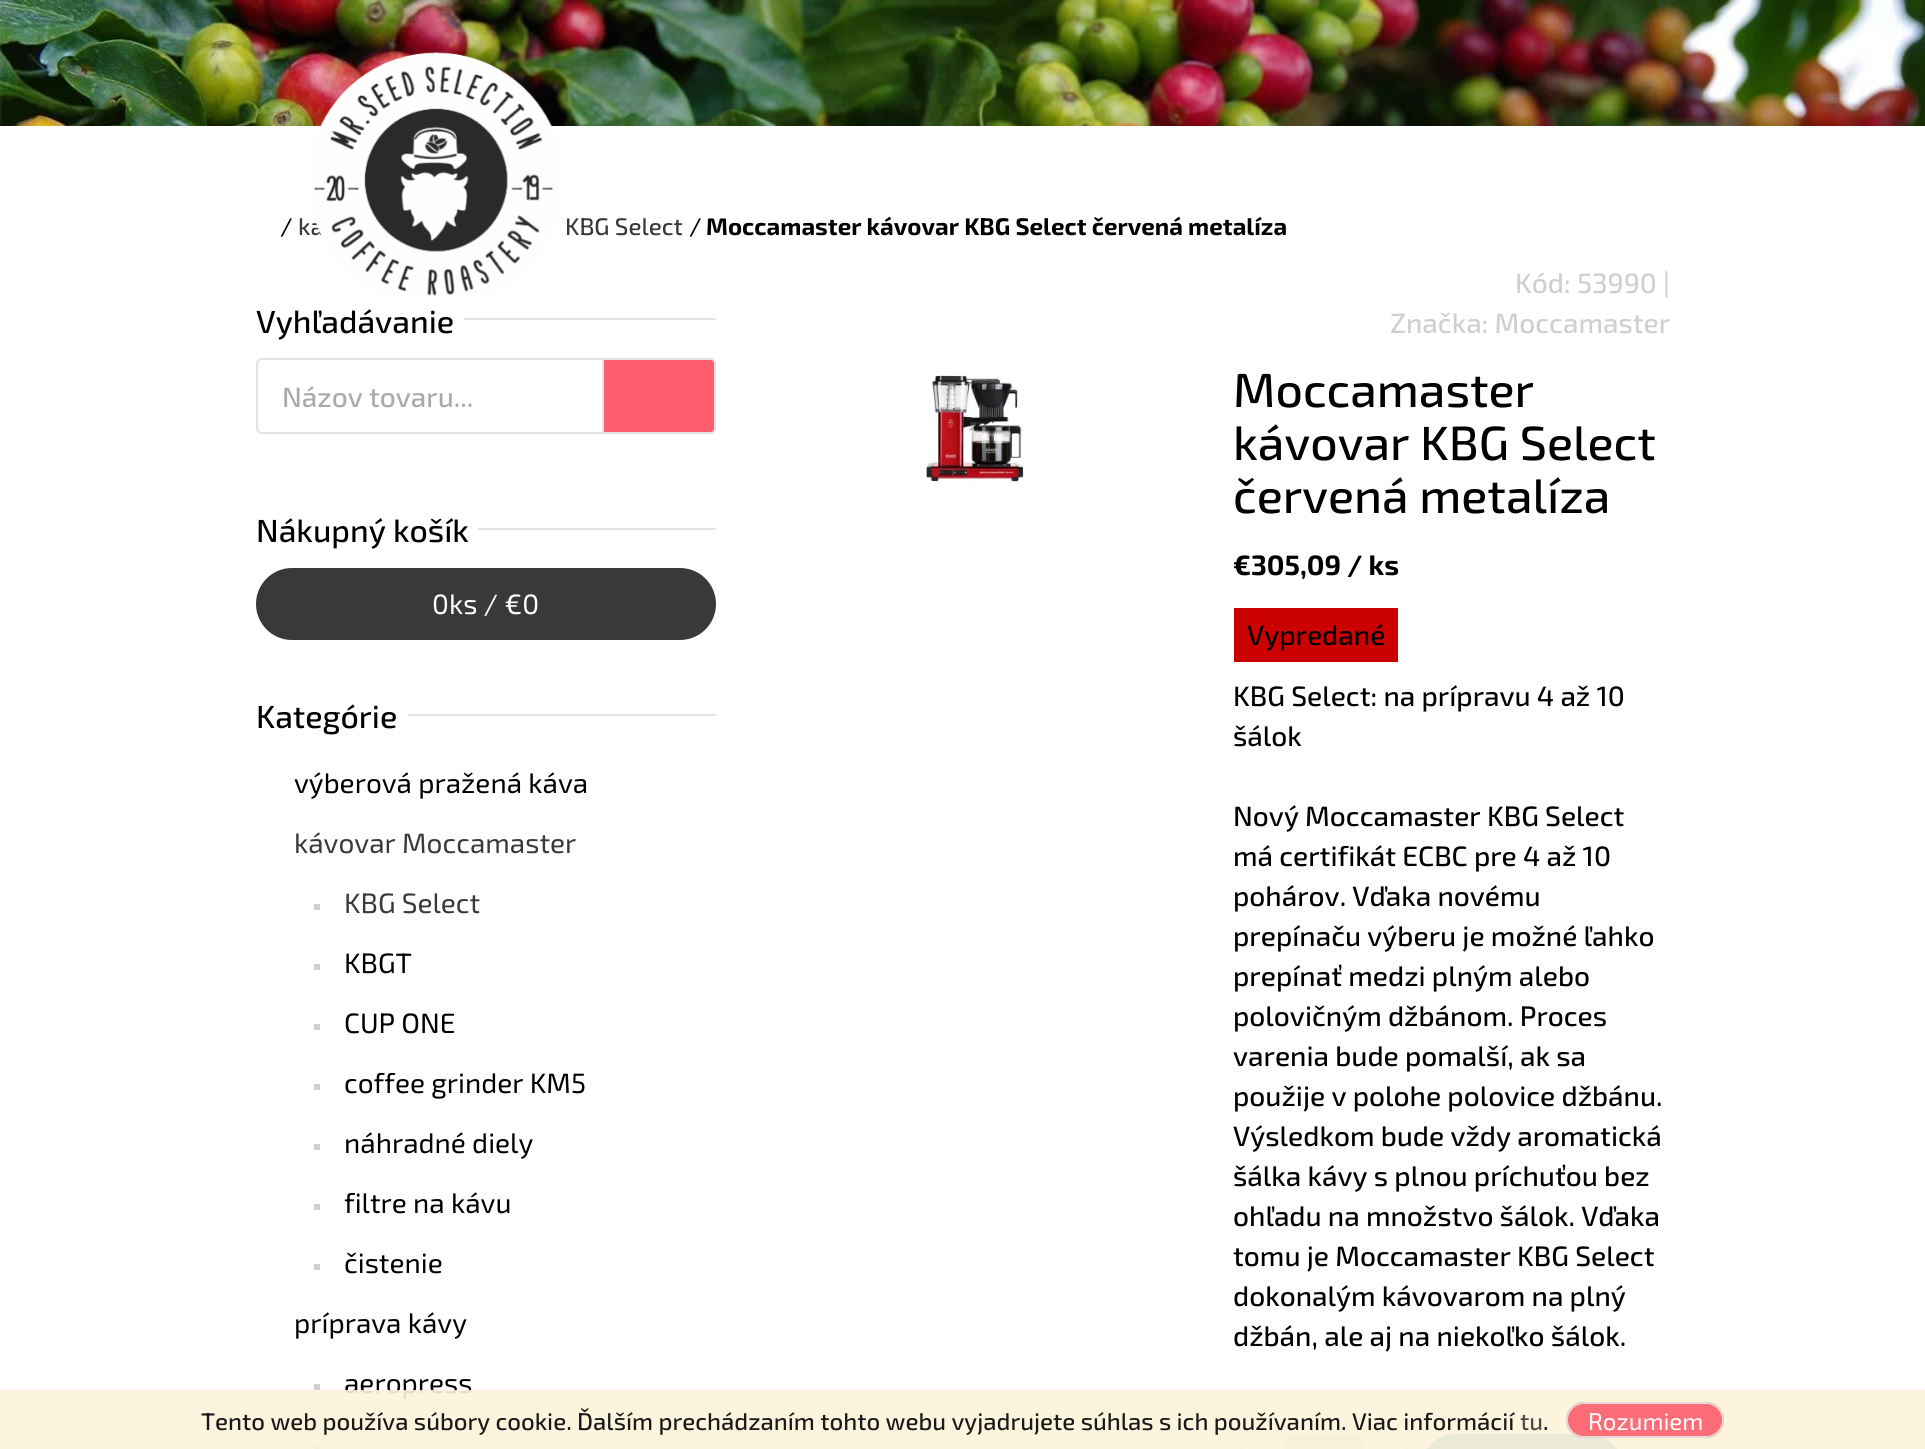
#include <cairo.h>
#include <math.h>
#include <stddef.h>


static void rgb(cairo_t *cr, int r, int g, int b)
{
	cairo_set_source_rgb(cr, r / 255.0, g / 255.0, b / 255.0);
}

static void face(cairo_t *cr, const char *family, double size, int italic, int bold)
{
	cairo_select_font_face(cr, family, italic ? CAIRO_FONT_SLANT_ITALIC : CAIRO_FONT_SLANT_NORMAL,
		bold ? CAIRO_FONT_WEIGHT_BOLD : CAIRO_FONT_WEIGHT_NORMAL);
	cairo_set_font_size(cr, size);
}

static void label(cairo_t *cr, double x, double y, const char *s)
{
	cairo_move_to(cr, x, y);
	cairo_show_text(cr, s);
}

static void rect(cairo_t *cr, double x, double y, double w, double h)
{
	cairo_rectangle(cr, x, y, w, h);
	cairo_fill(cr);
}

static void rrect(cairo_t *cr, double x, double y, double w, double h, double r)
{
	cairo_new_sub_path(cr);
	cairo_arc(cr, x + w - r, y + h - r, r, 0, M_PI / 2);
	cairo_arc(cr, x + r, y + h - r, r, M_PI / 2, M_PI);
	cairo_arc(cr, x + r, y + r, r, M_PI, 1.5 * M_PI);
	cairo_arc(cr, x + w - r, y + r, r, 1.5 * M_PI, 2 * M_PI);
	cairo_close_path(cr);
}

static void image(cairo_t *cr, const char *path, double x, double y, double w, double h)
{
	cairo_surface_t *image = cairo_image_surface_create_from_png(path);
	cairo_save(cr);
	cairo_set_source_surface(cr, image, x, y);
	cairo_rectangle(cr, x, y, w, h);
	cairo_fill(cr);
	cairo_restore(cr);
	cairo_surface_destroy(image);
}

static void draw(cairo_t *cr) {
	rgb(cr, 255, 255, 255);
	cairo_paint(cr);
	image(cr, "image0.png", 0, 0, 1925, 126);
	face(cr, "Exo 2 Medium", 24, 0, 0);
	rgb(cr, 57, 57, 57);
	label(cr, 298, 235, "ká");
	image(cr, "image1.png", 314, 52, 245, 244);
	rgb(cr, 0, 0, 0);
	label(cr, 280, 235, "/");
	rgb(cr, 57, 57, 57);
	label(cr, 565, 235, "KBG Select");
	rgb(cr, 0, 0, 0);
	label(cr, 689, 235, "/");
	face(cr, "Exo 2", 24, 0, 1);
	label(cr, 706, 235, "Moccamaster kávovar KBG Select červená metalíza");
	face(cr, "Exo 2 Medium", 32, 0, 0);
	label(cr, 256, 333, "Vyhľadávanie");
	rgb(cr, 227, 227, 227);
	rect(cr, 464, 318, 252, 2);
	rrect(cr, 257, 359, 458, 74, 5);
	cairo_stroke(cr);
	face(cr, "Exo 2 Medium", 28, 0, 0);
	rgb(cr, 170, 170, 170);
	label(cr, 282, 407, "Názov tovaru...");
	rgb(cr, 253, 94, 109);
	cairo_new_path(cr);
	cairo_move_to(cr, 603, 359);
	cairo_line_to(cr, 710, 359);
	cairo_curve_to(cr, 713, 359, 715, 361, 715, 364);
	cairo_line_to(cr, 715, 428);
	cairo_curve_to(cr, 715, 431, 713, 433, 710, 433);
	cairo_line_to(cr, 603, 433);
	cairo_close_path(cr);
	cairo_fill_preserve(cr);
	rgb(cr, 227, 227, 227);
	cairo_stroke(cr);
	face(cr, "Exo 2 Medium", 32, 0, 0);
	rgb(cr, 0, 0, 0);
	label(cr, 256, 542, "Nákupný košík");
	rgb(cr, 227, 227, 227);
	rect(cr, 478, 528, 238, 2);
	rgb(cr, 57, 57, 57);
	rrect(cr, 257, 569, 458, 70, 35);
	cairo_fill_preserve(cr);
	cairo_stroke(cr);
	face(cr, "Exo 2", 28, 0, 0);
	rgb(cr, 255, 255, 255);
	label(cr, 432, 614, "0ks / €0");
	face(cr, "Exo 2 Medium", 32, 0, 0);
	rgb(cr, 0, 0, 0);
	label(cr, 256, 728, "Kategórie");
	rgb(cr, 227, 227, 227);
	rect(cr, 408, 714, 308, 2);
	face(cr, "Exo 2", 28, 0, 0);
	rgb(cr, 0, 0, 0);
	label(cr, 294, 793, "výberová pražená káva");
	rgb(cr, 57, 57, 57);
	label(cr, 294, 853, "kávovar Moccamaster");
	rgb(cr, 207, 207, 207);
	rect(cr, 314, 904, 6, 6);
	rgb(cr, 57, 57, 57);
	label(cr, 344, 913, "KBG Select");
	rgb(cr, 207, 207, 207);
	rect(cr, 314, 964, 6, 6);
	rgb(cr, 0, 0, 0);
	label(cr, 344, 973, "KBGT");
	rgb(cr, 207, 207, 207);
	rect(cr, 314, 1024, 6, 6);
	rgb(cr, 0, 0, 0);
	label(cr, 344, 1033, "CUP ONE");
	rgb(cr, 207, 207, 207);
	rect(cr, 314, 1084, 6, 6);
	rgb(cr, 0, 0, 0);
	label(cr, 344, 1093, "coffee grinder KM5");
	rgb(cr, 207, 207, 207);
	rect(cr, 314, 1144, 6, 6);
	rgb(cr, 0, 0, 0);
	label(cr, 344, 1153, "náhradné diely");
	rgb(cr, 207, 207, 207);
	rect(cr, 314, 1204, 6, 6);
	rgb(cr, 0, 0, 0);
	label(cr, 344, 1213, "filtre na kávu");
	rgb(cr, 207, 207, 207);
	rect(cr, 314, 1264, 6, 6);
	rgb(cr, 0, 0, 0);
	label(cr, 344, 1273, "čistenie");
	label(cr, 294, 1333, "príprava kávy");
	rgb(cr, 207, 207, 207);
	rect(cr, 314, 1384, 6, 6);
	rgb(cr, 0, 0, 0);
	label(cr, 344, 1393, "aeropress");
	rgb(cr, 207, 207, 207);
	rect(cr, 314, 1444, 6, 5);
	image(cr, "image2.png", 926, 374, 98, 109);
	face(cr, "Exo 2 Medium", 28, 0, 0);
	label(cr, 1515, 293, "Kód: 53990 |");
	label(cr, 1390, 333, "Značka: Moccamaster");
	face(cr, "Exo 2 Medium", 48, 0, 0);
	rgb(cr, 0, 0, 0);
	label(cr, 1233, 407, "Moccamaster");
	label(cr, 1233, 460, "kávovar KBG Select");
	label(cr, 1233, 513, "červená metalíza");
	face(cr, "Exo 2", 28, 0, 1);
	label(cr, 1233, 575, "€305,09 / ks");
	rgb(cr, 203, 0, 0);
	rect(cr, 1234, 608, 164, 54);
	face(cr, "Exo 2 Medium", 28, 0, 0);
	rgb(cr, 0, 0, 0);
	label(cr, 1247, 645, "Vypredané");
	label(cr, 1233, 706, "KBG Select: na prípravu 4 až 10");
	label(cr, 1233, 746, "šálok");
	label(cr, 1233, 826, "Nový Moccamaster KBG Select");
	label(cr, 1233, 866, "má certifikát ECBC pre 4 až 10");
	label(cr, 1233, 906, "pohárov. Vďaka novému");
	label(cr, 1233, 946, "prepínaču výberu je možné ľahko");
	label(cr, 1233, 986, "prepínať medzi plným alebo");
	label(cr, 1233, 1026, "polovičným džbánom. Proces");
	label(cr, 1233, 1066, "varenia bude pomalší, ak sa");
	label(cr, 1233, 1106, "použije v polohe polovice džbánu.");
	label(cr, 1233, 1146, "Výsledkom bude vždy aromatická");
	label(cr, 1233, 1186, "šálka kávy s plnou príchuťou bez");
	label(cr, 1233, 1226, "ohľadu na množstvo šálok. Vďaka");
	label(cr, 1233, 1266, "tomu je Moccamaster KBG Select");
	label(cr, 1233, 1306, "dokonalým kávovarom na plný");
	label(cr, 1233, 1346, "džbán, ale aj na niekoľko šálok.");
	rrect(cr, 1235, 1435, 178, 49, 33);
	rgb(cr, 227, 227, 227);
	cairo_stroke(cr);
	rgb(cr, 255, 255, 255);
	cairo_new_path(cr);
	cairo_move_to(cr, 1270, 1436);
	cairo_line_to(cr, 1284, 1436);
	cairo_line_to(cr, 1284, 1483);
	cairo_line_to(cr, 1270, 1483);
	cairo_curve_to(cr, 1251, 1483, 1236, 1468, 1236, 1449);
	cairo_line_to(cr, 1236, 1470);
	cairo_curve_to(cr, 1236, 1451, 1251, 1436, 1270, 1436);
	cairo_close_path(cr);
	cairo_fill(cr);
	rgb(cr, 227, 227, 227);
	rect(cr, 1284, 1436, 80, 13);
	rgb(cr, 255, 255, 255);
	cairo_new_path(cr);
	cairo_move_to(cr, 1364, 1436);
	cairo_line_to(cr, 1378, 1436);
	cairo_curve_to(cr, 1397, 1436, 1412, 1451, 1412, 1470);
	cairo_line_to(cr, 1412, 1449);
	cairo_curve_to(cr, 1412, 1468, 1397, 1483, 1378, 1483);
	cairo_line_to(cr, 1364, 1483);
	cairo_close_path(cr);
	cairo_fill(cr);
	rgb(cr, 76, 148, 194);
	rrect(cr, 1421, 1435, 202, 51, 35);
	cairo_fill_preserve(cr);
	cairo_stroke(cr);
	cairo_set_source_rgba(cr, 0.992, 0.953, 0.855, 0.9);
	rect(cr, 0, 1390, 1925, 59);
	face(cr, "Exo 2 Medium", 24, 0, 0);
	rgb(cr, 26, 26, 26);
	label(cr, 201, 1430, "Tento web používa súbory cookie. Ďalším prechádzaním tohto webu vyjadrujete súhlas s ich používaním. Viac informácií");
	rgb(cr, 77, 77, 77);
	label(cr, 1520, 1430, "tu");
	rgb(cr, 26, 26, 26);
	label(cr, 1543, 1430, ".");
	cairo_set_source_rgba(cr, 0.992, 0.369, 0.427, 0.9);
	rrect(cr, 1566, 1402, 158, 36, 18);
	cairo_fill(cr);
	rrect(cr, 1567, 1403, 156, 34, 17);
	cairo_set_source_rgba(cr, 0.89, 0.89, 0.89, 0.9);
	cairo_stroke(cr);
	face(cr, "Exo 2", 24, 0, 0);
	rgb(cr, 255, 255, 255);
	label(cr, 1588, 1430, "Rozumiem");
}

int main(void) {
	cairo_surface_t *surface = cairo_image_surface_create(CAIRO_FORMAT_RGB24, 1925, 1449);
	cairo_t *cr = cairo_create(surface);
	cairo_font_options_t *options = cairo_font_options_create();
	cairo_font_options_set_hint_metrics(options, CAIRO_HINT_METRICS_OFF);
	cairo_font_options_set_hint_style(options, CAIRO_HINT_STYLE_NONE);
	cairo_set_font_options(cr, options);
	cairo_set_miter_limit(cr, 4);
	draw(cr);
	cairo_surface_write_to_png(surface, "render.png");
	cairo_font_options_destroy(options);
	cairo_destroy(cr);
	cairo_surface_destroy(surface);
	return 0;
}
